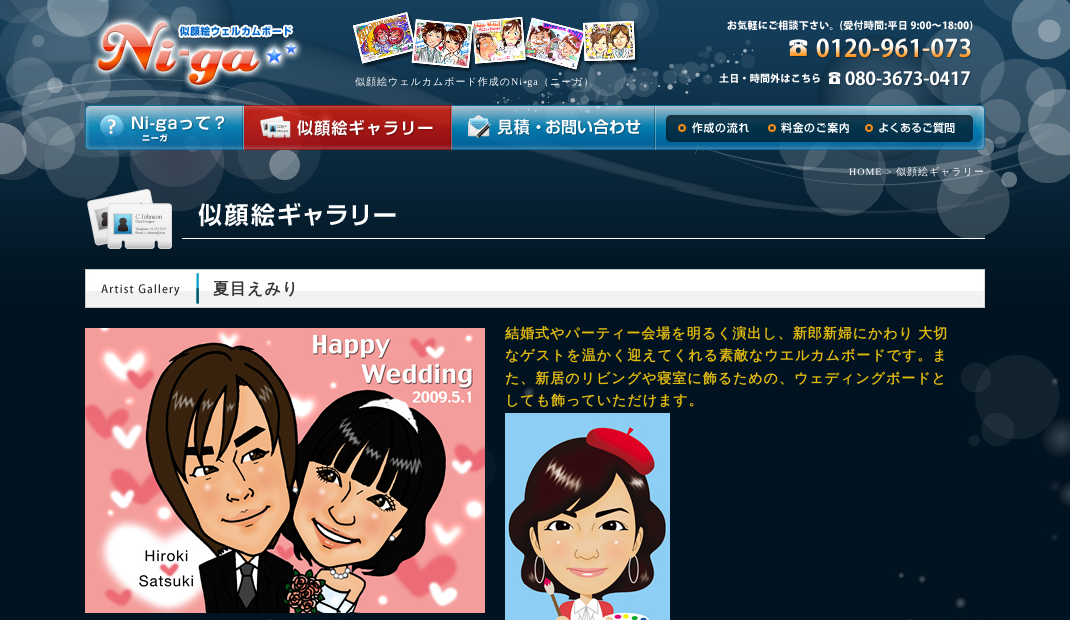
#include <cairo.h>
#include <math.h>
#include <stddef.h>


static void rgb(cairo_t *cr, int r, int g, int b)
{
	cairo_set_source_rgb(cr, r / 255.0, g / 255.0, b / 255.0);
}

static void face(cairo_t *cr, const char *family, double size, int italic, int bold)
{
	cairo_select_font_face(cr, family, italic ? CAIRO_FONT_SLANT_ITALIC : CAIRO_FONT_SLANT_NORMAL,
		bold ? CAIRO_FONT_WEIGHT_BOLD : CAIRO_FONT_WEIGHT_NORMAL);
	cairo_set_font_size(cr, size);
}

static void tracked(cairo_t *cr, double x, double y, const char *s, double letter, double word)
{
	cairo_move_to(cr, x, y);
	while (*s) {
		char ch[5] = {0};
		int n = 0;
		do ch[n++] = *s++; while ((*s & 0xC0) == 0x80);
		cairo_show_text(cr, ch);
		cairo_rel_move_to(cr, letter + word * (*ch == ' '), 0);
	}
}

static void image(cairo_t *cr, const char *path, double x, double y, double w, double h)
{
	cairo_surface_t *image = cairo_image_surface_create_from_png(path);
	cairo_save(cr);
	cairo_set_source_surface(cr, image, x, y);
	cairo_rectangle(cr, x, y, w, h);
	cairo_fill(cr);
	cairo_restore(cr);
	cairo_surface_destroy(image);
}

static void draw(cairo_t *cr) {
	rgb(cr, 255, 255, 255);
	cairo_paint(cr);
	image(cr, "image0.png", 0, 238, 1070, 382);
	image(cr, "image1.png", 0, 0, 1070, 165);
	image(cr, "image2.png", 85, 1, 900, 164);
	image(cr, "image3.png", 727, 20, 246, 11);
	image(cr, "image4.png", 789, 38, 183, 21);
	image(cr, "image5.png", 719, 71, 253, 16);
	image(cr, "image6.png", 85, 105, 159, 45);
	image(cr, "image7.png", 244, 105, 208, 45);
	image(cr, "image8.png", 452, 105, 204, 45);
	image(cr, "image9.png", 656, 105, 103, 45);
	image(cr, "image10.png", 759, 105, 98, 45);
	image(cr, "image11.png", 857, 105, 128, 45);
	face(cr, "WenQuanYi Zen Hei Medium", 10, 0, 0);
	rgb(cr, 255, 255, 255);
	tracked(cr, 355, 85, "似顔絵ウェルカムボード作成の", 1, 0);
	face(cr, "Liberation Serif", 10, 0, 0);
	tracked(cr, 511, 85, "Ni-ga", 1, 0);
	face(cr, "WenQuanYi Zen Hei Medium", 10, 0, 0);
	tracked(cr, 539, 85, "（ニーガ）", 1, 0);
	image(cr, "image12.png", 0, 165, 1070, 73);
	face(cr, "Liberation Serif", 10, 0, 0);
	tracked(cr, 849, 175, "HOME >", 1, 0);
	face(cr, "WenQuanYi Zen Hei Medium", 10, 0, 0);
	tracked(cr, 896, 175, "似顔絵ギャラリー", 1, 0);
	image(cr, "image13.png", 85, 189, 900, 60);
	image(cr, "image14.png", 85, 269, 900, 39);
	face(cr, "WenQuanYi Zen Hei", 16, 0, 1);
	rgb(cr, 51, 51, 51);
	tracked(cr, 213, 294, "夏目えみり", 1, 0);
	image(cr, "image15.png", 85, 328, 400, 285);
	face(cr, "WenQuanYi Zen Hei", 14, 0, 1);
	rgb(cr, 226, 186, 14);
	tracked(cr, 505, 338, "結婚式やパーティー会場を明るく演出し、新郎新婦にかわり 大切", 1, -1);
	tracked(cr, 505, 360, "なゲストを温かく迎えてくれる素敵なウエルカムボードです。ま", 1, 0);
	tracked(cr, 505, 383, "た、新居のリビングや寝室に飾るための、ウェディングボードと", 1, 0);
	tracked(cr, 505, 405, "しても飾っていただけます。", 1, 0);
	image(cr, "image16.png", 505, 413, 165, 207);
}

int main(void) {
	cairo_surface_t *surface = cairo_image_surface_create(CAIRO_FORMAT_RGB24, 1070, 620);
	cairo_t *cr = cairo_create(surface);
	cairo_font_options_t *options = cairo_font_options_create();
	cairo_font_options_set_hint_metrics(options, CAIRO_HINT_METRICS_OFF);
	cairo_font_options_set_hint_style(options, CAIRO_HINT_STYLE_NONE);
	cairo_set_font_options(cr, options);
	cairo_set_miter_limit(cr, 4);
	draw(cr);
	cairo_surface_write_to_png(surface, "render.png");
	cairo_font_options_destroy(options);
	cairo_destroy(cr);
	cairo_surface_destroy(surface);
	return 0;
}
